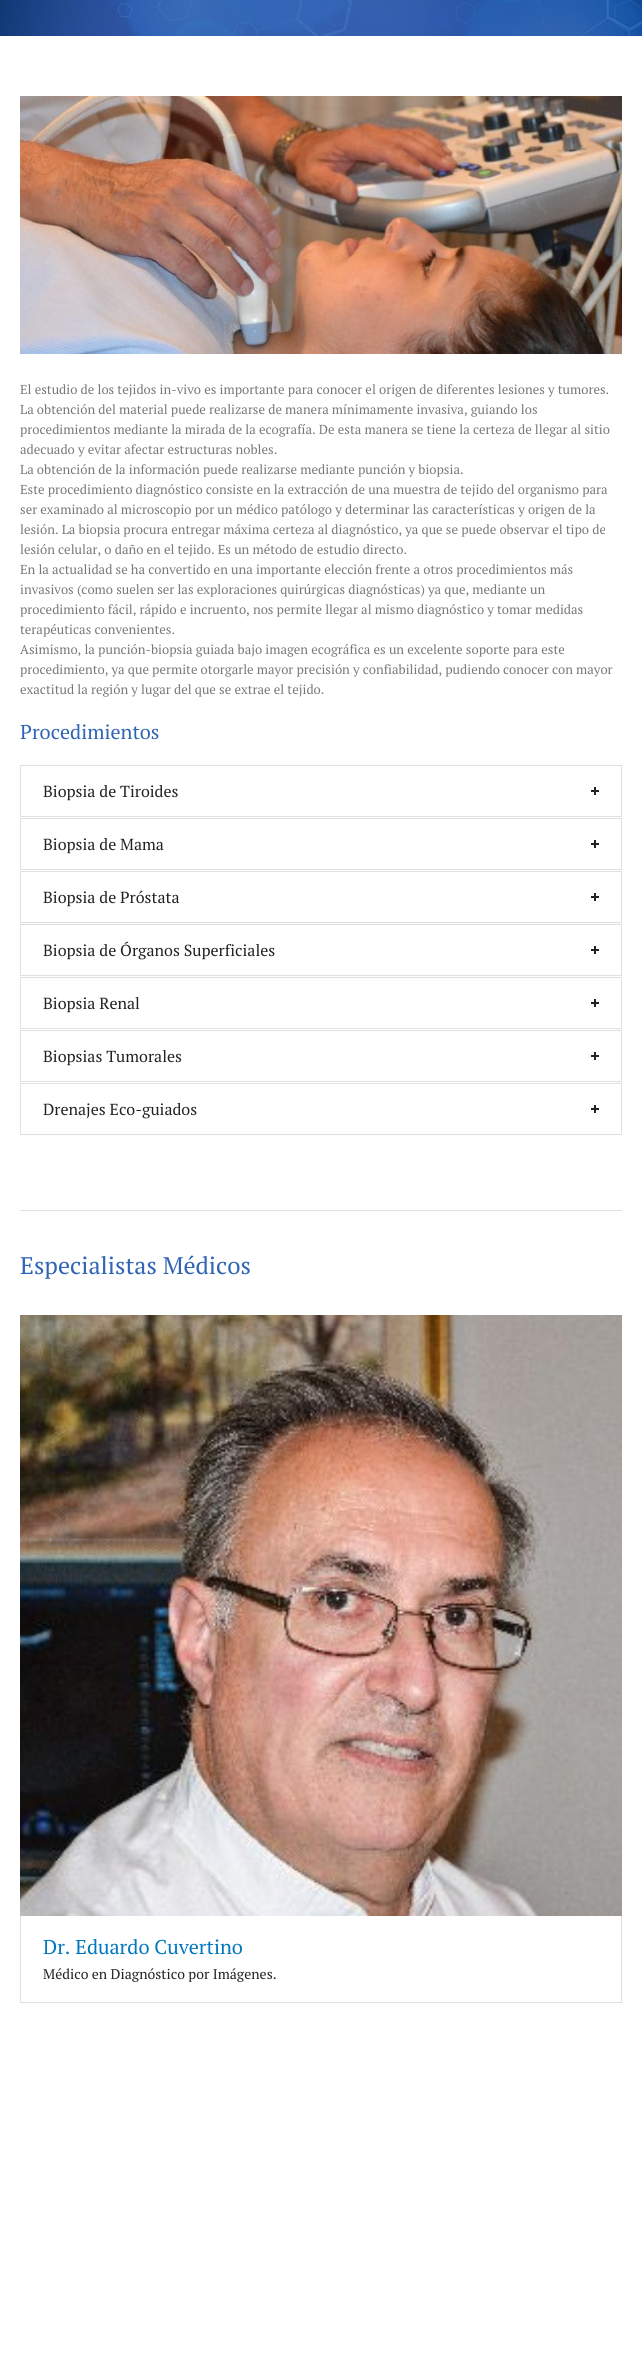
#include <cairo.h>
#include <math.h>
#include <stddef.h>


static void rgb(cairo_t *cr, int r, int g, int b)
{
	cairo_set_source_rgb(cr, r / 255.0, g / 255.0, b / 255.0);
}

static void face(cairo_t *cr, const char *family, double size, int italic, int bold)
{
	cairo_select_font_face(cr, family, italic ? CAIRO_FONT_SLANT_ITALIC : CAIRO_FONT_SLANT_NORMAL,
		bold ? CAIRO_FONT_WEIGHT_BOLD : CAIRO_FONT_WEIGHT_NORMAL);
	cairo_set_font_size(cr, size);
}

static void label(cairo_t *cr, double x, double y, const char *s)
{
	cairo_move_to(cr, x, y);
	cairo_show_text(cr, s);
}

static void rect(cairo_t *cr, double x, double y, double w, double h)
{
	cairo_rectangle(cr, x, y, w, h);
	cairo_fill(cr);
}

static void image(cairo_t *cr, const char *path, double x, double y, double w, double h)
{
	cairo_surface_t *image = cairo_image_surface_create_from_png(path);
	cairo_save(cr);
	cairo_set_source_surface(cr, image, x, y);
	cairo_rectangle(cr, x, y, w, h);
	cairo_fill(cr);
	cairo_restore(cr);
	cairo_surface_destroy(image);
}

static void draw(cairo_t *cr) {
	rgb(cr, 255, 255, 255);
	cairo_paint(cr);
	image(cr, "image0.png", 0, 0, 642, 36);
	image(cr, "image1.png", 20, 96, 602, 258);
	face(cr, "PT Serif", 13, 0, 0);
	rgb(cr, 120, 120, 120);
	label(cr, 20, 394, "El estudio de los tejidos in-vivo es importante para conocer el origen de diferentes lesiones y tumores.");
	label(cr, 20, 414, "La obtención del material puede realizarse de manera mínimamente invasiva, guiando los");
	label(cr, 20, 434, "procedimientos mediante la mirada de la ecografía. De esta manera se tiene la certeza de llegar al sitio");
	label(cr, 20, 454, "adecuado y evitar afectar estructuras nobles.");
	label(cr, 20, 474, "La obtención de la información puede realizarse mediante punción y biopsia.");
	label(cr, 20, 494, "Este procedimiento diagnóstico consiste en la extracción de una muestra de tejido del organismo para");
	label(cr, 20, 514, "ser examinado al microscopio por un médico patólogo y determinar las características y origen de la");
	label(cr, 20, 534, "lesión. La biopsia procura entregar máxima certeza al diagnóstico, ya que se puede observar el tipo de");
	label(cr, 20, 554, "lesión celular, o daño en el tejido. Es un método de estudio directo.");
	label(cr, 20, 574, "En la actualidad se ha convertido en una importante elección frente a otros procedimientos más");
	label(cr, 20, 594, "invasivos (como suelen ser las exploraciones quirúrgicas diagnósticas) ya que, mediante un");
	label(cr, 20, 614, "procedimiento fácil, rápido e incruento, nos permite llegar al mismo diagnóstico y tomar medidas");
	label(cr, 20, 634, "terapéuticas convenientes.");
	label(cr, 20, 654, "Asimismo, la punción-biopsia guiada bajo imagen ecográfica es un excelente soporte para este");
	label(cr, 20, 674, "procedimiento, ya que permite otorgarle mayor precisión y confiabilidad, pudiendo conocer con mayor");
	label(cr, 20, 694, "exactitud la región y lugar del que se extrae el tejido.");
	face(cr, "PT Serif", 20, 0, 0);
	rgb(cr, 48, 101, 181);
	label(cr, 20, 739, "Procedimientos");
	cairo_rectangle(cr, 20.5, 765.5, 601, 51);
	rgb(cr, 224, 224, 224);
	cairo_set_line_width(cr, 1);
	cairo_stroke(cr);
	face(cr, "PT Serif", 16, 0, 0);
	rgb(cr, 34, 34, 34);
	label(cr, 43, 797, "Biopsia de Tiroides");
	rect(cr, 591, 790, 8, 2);
	rect(cr, 594, 787, 2, 8);
	cairo_rectangle(cr, 20.5, 818.5, 601, 51);
	rgb(cr, 224, 224, 224);
	cairo_stroke(cr);
	rgb(cr, 34, 34, 34);
	label(cr, 43, 850, "Biopsia de Mama");
	rect(cr, 591, 843, 8, 2);
	rect(cr, 594, 840, 2, 8);
	cairo_rectangle(cr, 20.5, 871.5, 601, 51);
	rgb(cr, 224, 224, 224);
	cairo_stroke(cr);
	rgb(cr, 34, 34, 34);
	label(cr, 43, 903, "Biopsia de Próstata");
	rect(cr, 591, 896, 8, 2);
	rect(cr, 594, 893, 2, 8);
	cairo_rectangle(cr, 20.5, 924.5, 601, 51);
	rgb(cr, 224, 224, 224);
	cairo_stroke(cr);
	rgb(cr, 34, 34, 34);
	label(cr, 43, 956, "Biopsia de Órganos Superficiales");
	rect(cr, 591, 949, 8, 2);
	rect(cr, 594, 946, 2, 8);
	cairo_rectangle(cr, 20.5, 977.5, 601, 51);
	rgb(cr, 224, 224, 224);
	cairo_stroke(cr);
	rgb(cr, 34, 34, 34);
	label(cr, 43, 1009, "Biopsia Renal");
	rect(cr, 591, 1002, 8, 2);
	rect(cr, 594, 999, 2, 8);
	cairo_rectangle(cr, 20.5, 1030.5, 601, 51);
	rgb(cr, 224, 224, 224);
	cairo_stroke(cr);
	rgb(cr, 34, 34, 34);
	label(cr, 43, 1062, "Biopsias Tumorales");
	rect(cr, 591, 1055, 8, 2);
	rect(cr, 594, 1052, 2, 8);
	cairo_rectangle(cr, 20.5, 1083.5, 601, 51);
	rgb(cr, 224, 224, 224);
	cairo_stroke(cr);
	rgb(cr, 34, 34, 34);
	label(cr, 43, 1115, "Drenajes Eco-guiados");
	rect(cr, 591, 1108, 8, 2);
	rect(cr, 594, 1105, 2, 8);
	rgb(cr, 224, 224, 224);
	rect(cr, 20, 1210, 602, 1);
	face(cr, "PT Serif", 24, 0, 0);
	rgb(cr, 48, 101, 181);
	label(cr, 20, 1274, "Especialistas Médicos");
	image(cr, "image2.png", 20, 1315, 602, 601);
	rgb(cr, 224, 224, 224);
	rect(cr, 621, 1916, 1, 87);
	rect(cr, 20, 2002, 602, 1);
	rect(cr, 20, 1916, 1, 87);
	face(cr, "PT Serif", 20, 0, 0);
	rgb(cr, 0, 120, 191);
	label(cr, 43, 1954, "Dr. Eduardo Cuvertino");
	face(cr, "PT Serif", 14, 0, 0);
	rgb(cr, 34, 34, 34);
	label(cr, 43, 1979, "Médico en Diagnóstico por Imágenes.");
}

int main(void) {
	cairo_surface_t *surface = cairo_image_surface_create(CAIRO_FORMAT_RGB24, 642, 2370);
	cairo_t *cr = cairo_create(surface);
	cairo_font_options_t *options = cairo_font_options_create();
	cairo_font_options_set_hint_metrics(options, CAIRO_HINT_METRICS_OFF);
	cairo_font_options_set_hint_style(options, CAIRO_HINT_STYLE_NONE);
	cairo_set_font_options(cr, options);
	cairo_set_miter_limit(cr, 4);
	draw(cr);
	cairo_surface_write_to_png(surface, "render.png");
	cairo_font_options_destroy(options);
	cairo_destroy(cr);
	cairo_surface_destroy(surface);
	return 0;
}
